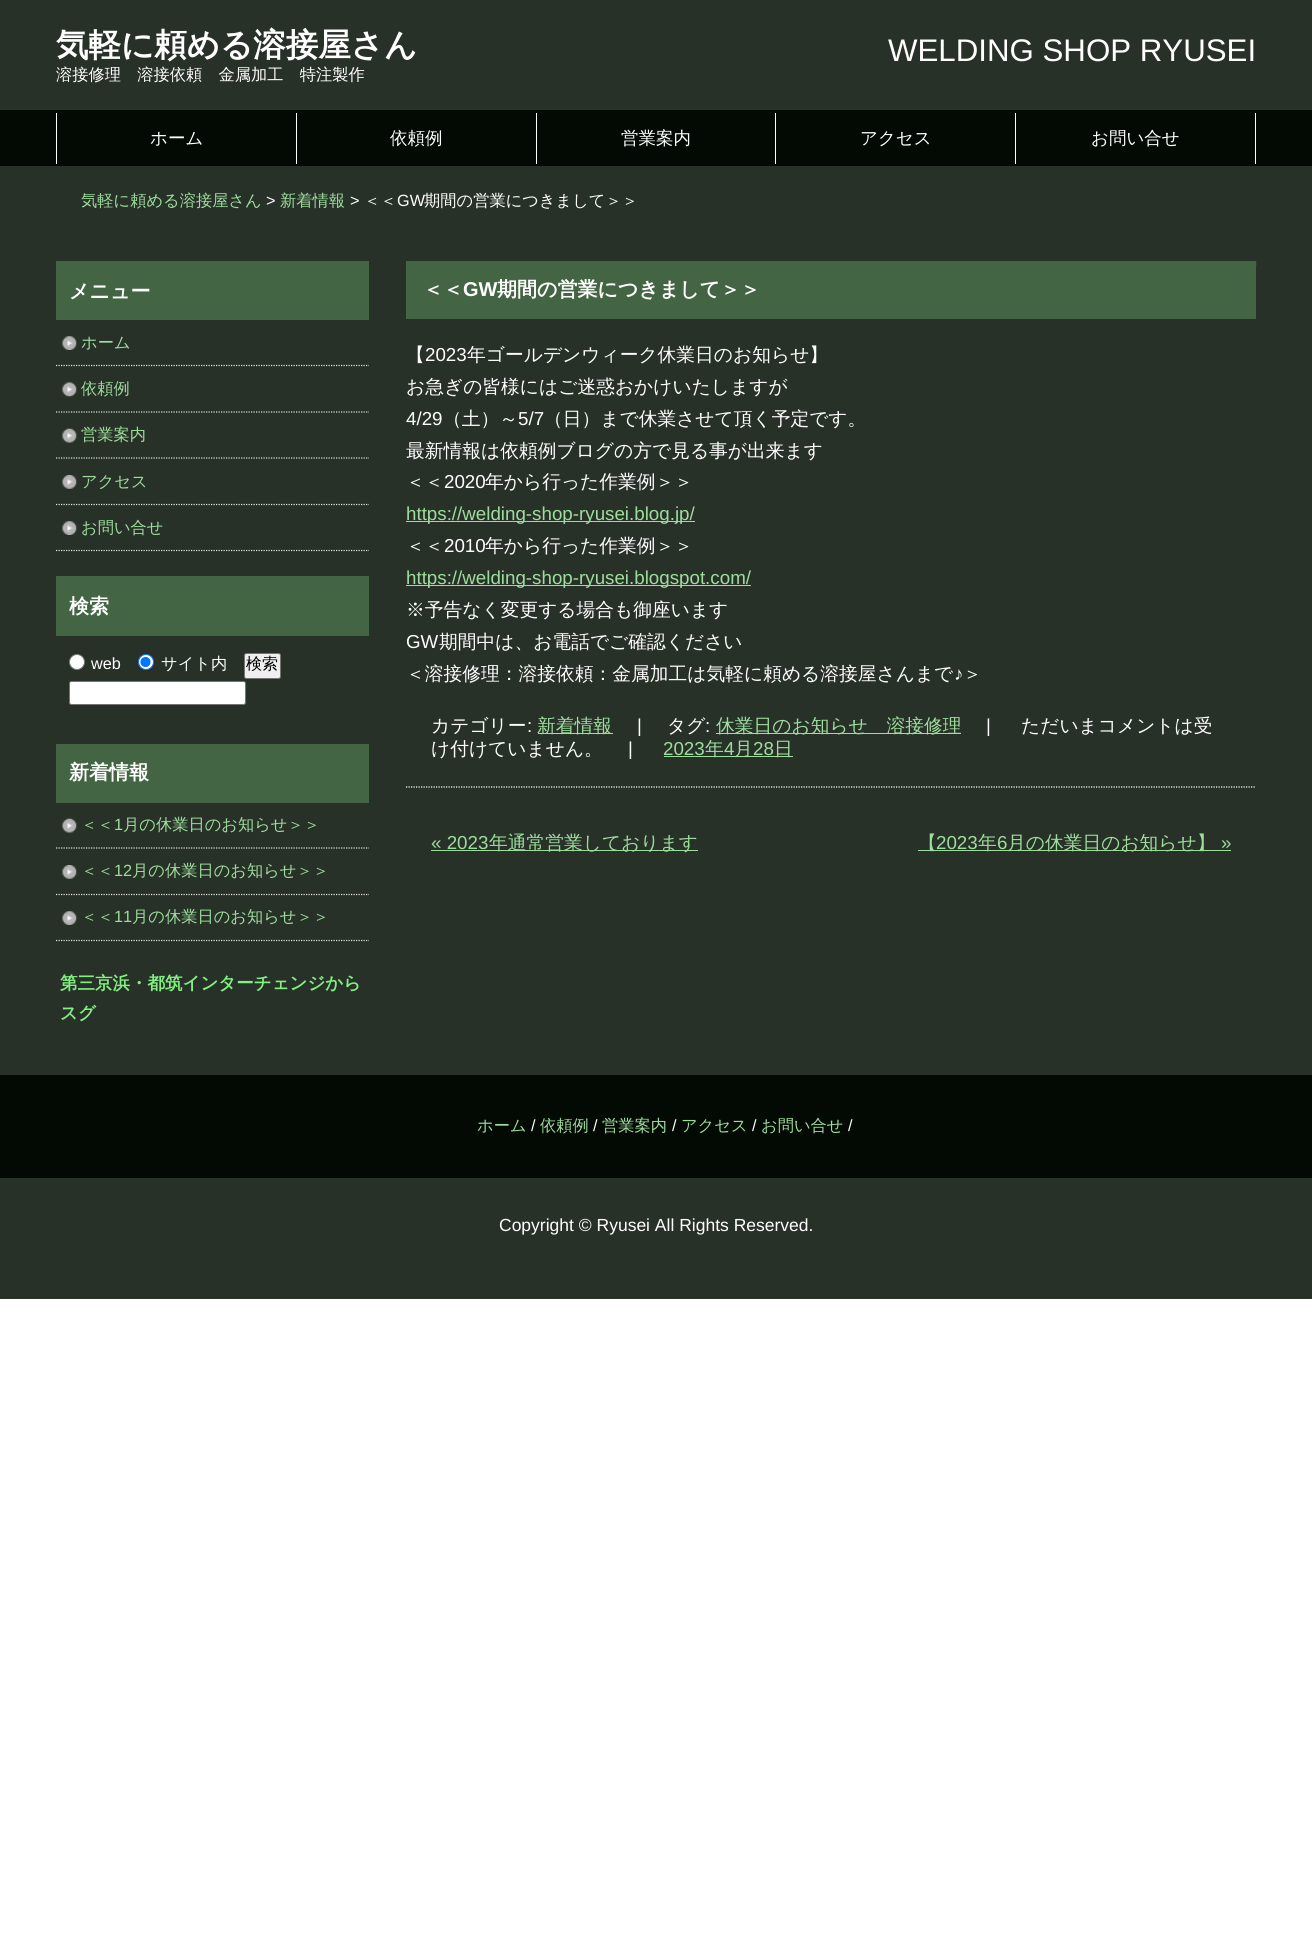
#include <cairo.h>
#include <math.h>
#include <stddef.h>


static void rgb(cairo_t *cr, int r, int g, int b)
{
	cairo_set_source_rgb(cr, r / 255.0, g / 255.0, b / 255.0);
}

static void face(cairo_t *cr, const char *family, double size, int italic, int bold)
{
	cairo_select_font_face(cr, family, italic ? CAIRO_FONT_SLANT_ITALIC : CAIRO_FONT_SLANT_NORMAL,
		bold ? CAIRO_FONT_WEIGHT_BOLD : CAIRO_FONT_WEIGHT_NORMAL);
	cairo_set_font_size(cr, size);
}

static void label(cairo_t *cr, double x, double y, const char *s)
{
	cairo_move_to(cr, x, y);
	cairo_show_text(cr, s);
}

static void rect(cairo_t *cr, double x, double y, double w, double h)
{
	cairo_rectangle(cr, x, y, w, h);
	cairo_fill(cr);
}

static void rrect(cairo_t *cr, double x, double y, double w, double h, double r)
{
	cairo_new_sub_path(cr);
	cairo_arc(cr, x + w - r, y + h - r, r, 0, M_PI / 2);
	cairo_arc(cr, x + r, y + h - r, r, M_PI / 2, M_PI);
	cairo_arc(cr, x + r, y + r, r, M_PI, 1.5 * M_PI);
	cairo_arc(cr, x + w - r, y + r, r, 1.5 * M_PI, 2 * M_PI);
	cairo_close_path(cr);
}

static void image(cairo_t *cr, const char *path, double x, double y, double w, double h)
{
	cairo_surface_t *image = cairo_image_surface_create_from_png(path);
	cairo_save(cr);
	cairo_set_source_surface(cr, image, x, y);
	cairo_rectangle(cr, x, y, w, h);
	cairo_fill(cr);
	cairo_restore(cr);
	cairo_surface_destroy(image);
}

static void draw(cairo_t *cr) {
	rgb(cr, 255, 255, 255);
	cairo_paint(cr);
	rgb(cr, 40, 49, 40);
	rect(cr, 0, 0, 1312, 1075);
	face(cr, "WenQuanYi Zen Hei", 32.5, 0, 1);
	rgb(cr, 255, 255, 255);
	label(cr, 56, 56, "気軽に頼める溶接屋さん");
	face(cr, "Liberation Sans", 31.25, 0, 0);
	label(cr, 888, 61, "WELDING SHOP RYUSEI");
	face(cr, "WenQuanYi Zen Hei Medium", 16.25, 0, 0);
	label(cr, 56, 80, "溶接修理　溶接依頼　金属加工　特注製作");
	rgb(cr, 3, 10, 3);
	rect(cr, 0, 110, 1312, 56);
	rgb(cr, 255, 255, 255);
	rect(cr, 56, 113, 1, 51);
	face(cr, "WenQuanYi Zen Hei Medium", 17.5, 0, 0);
	label(cr, 150, 144, "ホーム");
	rect(cr, 296, 113, 1, 51);
	label(cr, 390, 144, "依頼例");
	rect(cr, 536, 113, 1, 51);
	label(cr, 621, 144, "営業案内");
	rect(cr, 775, 113, 1, 51);
	label(cr, 860, 144, "アクセス");
	rect(cr, 1255, 113, 1, 51);
	rect(cr, 1015, 113, 1, 51);
	label(cr, 1091, 144, "お問い合せ");
	face(cr, "WenQuanYi Zen Hei Medium", 16.25, 0, 0);
	rgb(cr, 157, 221, 157);
	label(cr, 81, 206, "気軽に頼める溶接屋さん");
	face(cr, "Liberation Sans", 16.25, 0, 0);
	rgb(cr, 255, 255, 255);
	label(cr, 266, 206, ">");
	face(cr, "WenQuanYi Zen Hei Medium", 16.25, 0, 0);
	rgb(cr, 157, 221, 157);
	label(cr, 280, 206, "新着情報");
	face(cr, "Liberation Sans", 16.25, 0, 0);
	rgb(cr, 255, 255, 255);
	label(cr, 350, 206, ">");
	face(cr, "WenQuanYi Zen Hei Medium", 16.25, 0, 0);
	label(cr, 364, 206, "＜＜");
	face(cr, "Liberation Sans", 16.25, 0, 0);
	label(cr, 397, 206, "GW");
	face(cr, "WenQuanYi Zen Hei Medium", 16.25, 0, 0);
	label(cr, 424, 206, "期間の営業につきまして＞＞");
	rgb(cr, 68, 101, 68);
	rect(cr, 56, 261, 313, 59);
	face(cr, "WenQuanYi Zen Hei", 20, 0, 1);
	rgb(cr, 255, 255, 255);
	label(cr, 69, 298, "メニュー");
	image(cr, "image0.png", 62, 336, 15, 14);
	cairo_new_path(cr);
	cairo_move_to(cr, 56, 365.5);
	cairo_line_to(cr, 369, 365.5);
	rgb(cr, 226, 226, 226);
	cairo_set_line_width(cr, 1.2);
	cairo_set_dash(cr, (double[]){1.25, 1.25}, 2, 0);
	cairo_stroke(cr);
	face(cr, "WenQuanYi Zen Hei Medium", 16.25, 0, 0);
	rgb(cr, 157, 221, 157);
	label(cr, 81, 348, "ホーム");
	image(cr, "image1.png", 62, 382, 15, 15);
	cairo_new_path(cr);
	cairo_move_to(cr, 56, 412);
	cairo_line_to(cr, 369, 412);
	rgb(cr, 226, 226, 226);
	cairo_stroke(cr);
	rgb(cr, 157, 221, 157);
	label(cr, 81, 394, "依頼例");
	image(cr, "image2.png", 62, 428, 15, 15);
	cairo_new_path(cr);
	cairo_move_to(cr, 56, 458);
	cairo_line_to(cr, 369, 458);
	rgb(cr, 226, 226, 226);
	cairo_stroke(cr);
	rgb(cr, 157, 221, 157);
	label(cr, 81, 440, "営業案内");
	image(cr, "image3.png", 62, 475, 15, 14);
	cairo_new_path(cr);
	cairo_move_to(cr, 56, 504.5);
	cairo_line_to(cr, 369, 504.5);
	rgb(cr, 226, 226, 226);
	cairo_stroke(cr);
	rgb(cr, 157, 221, 157);
	label(cr, 81, 487, "アクセス");
	image(cr, "image0.png", 62, 521, 15, 14);
	cairo_new_path(cr);
	cairo_move_to(cr, 56, 550.5);
	cairo_line_to(cr, 369, 550.5);
	rgb(cr, 226, 226, 226);
	cairo_stroke(cr);
	rgb(cr, 157, 221, 157);
	label(cr, 81, 533, "お問い合せ");
	rgb(cr, 68, 101, 68);
	rect(cr, 56, 576, 313, 60);
	face(cr, "WenQuanYi Zen Hei", 20, 0, 1);
	rgb(cr, 255, 255, 255);
	label(cr, 69, 613, "検索");
	cairo_new_path(cr);
	cairo_arc(cr, 77, 662, 7.5, 0, 2 * M_PI);
	cairo_fill_preserve(cr);
	rgb(cr, 118, 118, 118);
	cairo_set_line_width(cr, 1);
	cairo_set_dash(cr, NULL, 0, 0);
	cairo_stroke(cr);
	face(cr, "Liberation Sans", 16.25, 0, 0);
	rgb(cr, 255, 255, 255);
	label(cr, 91, 669, "web");
	cairo_new_path(cr);
	cairo_arc(cr, 146, 662, 7.5, 0, 2 * M_PI);
	cairo_fill_preserve(cr);
	rgb(cr, 0, 117, 255);
	cairo_stroke(cr);
	cairo_arc(cr, 145.5, 662, 5, 0, 2 * M_PI);
	cairo_fill(cr);
	face(cr, "WenQuanYi Zen Hei Medium", 16.25, 0, 0);
	rgb(cr, 255, 255, 255);
	label(cr, 161, 669, "サイト内");
	rgb(cr, 239, 239, 239);
	rrect(cr, 244.5, 653.5, 36, 25, 2);
	cairo_fill_preserve(cr);
	rgb(cr, 118, 118, 118);
	cairo_stroke(cr);
	face(cr, "WenQuanYi Zen Hei Medium", 16, 0, 0);
	rgb(cr, 0, 0, 0);
	label(cr, 246, 669, "検索");
	rgb(cr, 255, 255, 255);
	rrect(cr, 69.5, 681.5, 176, 23, 2);
	cairo_fill_preserve(cr);
	rgb(cr, 118, 118, 118);
	cairo_stroke(cr);
	rgb(cr, 68, 101, 68);
	rect(cr, 56, 744, 313, 59);
	face(cr, "WenQuanYi Zen Hei", 20, 0, 1);
	rgb(cr, 255, 255, 255);
	label(cr, 69, 779, "新着情報");
	image(cr, "image2.png", 62, 818, 15, 15);
	cairo_new_path(cr);
	cairo_move_to(cr, 56, 848);
	cairo_line_to(cr, 369, 848);
	rgb(cr, 226, 226, 226);
	cairo_set_line_width(cr, 1.2);
	cairo_set_dash(cr, (double[]){1.25, 1.25}, 2, 0);
	cairo_stroke(cr);
	face(cr, "WenQuanYi Zen Hei Medium", 16.25, 0, 0);
	rgb(cr, 157, 221, 157);
	label(cr, 81, 830, "＜＜");
	face(cr, "Liberation Sans", 16.25, 0, 0);
	label(cr, 114, 830, "1");
	face(cr, "WenQuanYi Zen Hei Medium", 16.25, 0, 0);
	label(cr, 123, 830, "月の休業日のお知らせ＞＞");
	image(cr, "image3.png", 62, 865, 15, 14);
	cairo_new_path(cr);
	cairo_move_to(cr, 56, 894.5);
	cairo_line_to(cr, 369, 894.5);
	rgb(cr, 226, 226, 226);
	cairo_stroke(cr);
	rgb(cr, 157, 221, 157);
	label(cr, 81, 876, "＜＜");
	face(cr, "Liberation Sans", 16.25, 0, 0);
	label(cr, 114, 876, "12");
	face(cr, "WenQuanYi Zen Hei Medium", 16.25, 0, 0);
	label(cr, 132, 876, "月の休業日のお知らせ＞＞");
	image(cr, "image0.png", 62, 911, 15, 14);
	cairo_new_path(cr);
	cairo_move_to(cr, 56, 940.5);
	cairo_line_to(cr, 369, 940.5);
	rgb(cr, 226, 226, 226);
	cairo_stroke(cr);
	rgb(cr, 157, 221, 157);
	label(cr, 81, 922, "＜＜");
	face(cr, "Liberation Sans", 16.25, 0, 0);
	label(cr, 114, 922, "11");
	face(cr, "WenQuanYi Zen Hei Medium", 16.25, 0, 0);
	label(cr, 132, 922, "月の休業日のお知らせ＞＞");
	face(cr, "WenQuanYi Zen Hei", 17.5, 0, 1);
	rgb(cr, 128, 240, 128);
	label(cr, 60, 989, "第三京浜・都筑インターチェンジから");
	label(cr, 60, 1019, "スグ");
	cairo_new_path(cr);
	cairo_move_to(cr, 406, 787);
	cairo_line_to(cr, 1256, 787);
	rgb(cr, 255, 255, 255);
	cairo_stroke(cr);
	image(cr, "image4.png", 1256, 261, 1, 5);
	rgb(cr, 68, 101, 68);
	rect(cr, 406, 261, 850, 58);
	face(cr, "WenQuanYi Zen Hei", 20, 0, 1);
	rgb(cr, 255, 255, 255);
	label(cr, 423, 296, "＜＜");
	face(cr, "Liberation Sans", 20, 0, 1);
	label(cr, 463, 296, "GW");
	face(cr, "WenQuanYi Zen Hei", 20, 0, 1);
	label(cr, 497, 296, "期間の営業につきまして＞＞");
	face(cr, "WenQuanYi Zen Hei Medium", 18.75, 0, 0);
	label(cr, 406, 361, "【");
	face(cr, "Liberation Sans", 18.75, 0, 0);
	label(cr, 425, 361, "2023");
	face(cr, "WenQuanYi Zen Hei Medium", 18.75, 0, 0);
	label(cr, 467, 361, "年ゴールデンウィーク休業日のお知らせ】");
	label(cr, 406, 393, "お急ぎの皆様にはご迷惑おかけいたしますが");
	face(cr, "Liberation Sans", 18.75, 0, 0);
	label(cr, 406, 425, "4/29");
	face(cr, "WenQuanYi Zen Hei Medium", 18.75, 0, 0);
	label(cr, 443, 425, "（土）～");
	face(cr, "Liberation Sans", 18.75, 0, 0);
	label(cr, 518, 425, "5/7");
	face(cr, "WenQuanYi Zen Hei Medium", 18.75, 0, 0);
	label(cr, 544, 425, "（日）まで休業させて頂く予定です。");
	label(cr, 406, 457, "最新情報は依頼例ブログの方で見る事が出来ます");
	label(cr, 406, 488, "＜＜");
	face(cr, "Liberation Sans", 18.75, 0, 0);
	label(cr, 444, 488, "2020");
	face(cr, "WenQuanYi Zen Hei Medium", 18.75, 0, 0);
	label(cr, 485, 488, "年から行った作業例＞＞");
	rgb(cr, 157, 221, 157);
	rect(cr, 406, 521, 289, 1);
	face(cr, "Liberation Sans", 18.75, 0, 0);
	label(cr, 406, 520, "https://welding-shop-ryusei.blog.jp/");
	face(cr, "WenQuanYi Zen Hei Medium", 18.75, 0, 0);
	rgb(cr, 255, 255, 255);
	label(cr, 406, 552, "＜＜");
	face(cr, "Liberation Sans", 18.75, 0, 0);
	label(cr, 444, 552, "2010");
	face(cr, "WenQuanYi Zen Hei Medium", 18.75, 0, 0);
	label(cr, 485, 552, "年から行った作業例＞＞");
	rgb(cr, 157, 221, 157);
	rect(cr, 406, 585, 345, 1);
	face(cr, "Liberation Sans", 18.75, 0, 0);
	label(cr, 406, 584, "https://welding-shop-ryusei.blogspot.com/");
	face(cr, "WenQuanYi Zen Hei Medium", 18.75, 0, 0);
	rgb(cr, 255, 255, 255);
	label(cr, 406, 616, "※予告なく変更する場合も御座います");
	face(cr, "Liberation Sans", 18.75, 0, 0);
	label(cr, 406, 648, "GW");
	face(cr, "WenQuanYi Zen Hei Medium", 18.75, 0, 0);
	label(cr, 439, 648, "期間中は、お電話でご確認ください");
	label(cr, 406, 680, "＜溶接修理：溶接依頼：金属加工は気軽に頼める溶接屋さんまで");
	face(cr, "Liberation Sans", 18.75, 0, 0);
	label(cr, 954, 680, "♪");
	face(cr, "WenQuanYi Zen Hei Medium", 18.75, 0, 0);
	label(cr, 963, 680, "＞");
	label(cr, 431, 732, "カテゴリー");
	face(cr, "Liberation Sans", 18.75, 0, 0);
	label(cr, 527, 732, ":");
	rgb(cr, 157, 221, 157);
	rect(cr, 538, 733, 75, 1);
	face(cr, "WenQuanYi Zen Hei Medium", 18.75, 0, 0);
	label(cr, 537, 732, "新着情報");
	face(cr, "Liberation Sans", 18.75, 0, 0);
	rgb(cr, 255, 255, 255);
	label(cr, 637, 732, "|");
	face(cr, "WenQuanYi Zen Hei Medium", 18.75, 0, 0);
	label(cr, 667, 732, "タグ");
	face(cr, "Liberation Sans", 18.75, 0, 0);
	label(cr, 705, 732, ":");
	rgb(cr, 157, 221, 157);
	rect(cr, 716, 733, 245, 1);
	face(cr, "WenQuanYi Zen Hei Medium", 18.75, 0, 0);
	label(cr, 716, 732, "休業日のお知らせ　溶接修理");
	face(cr, "Liberation Sans", 18.75, 0, 0);
	rgb(cr, 255, 255, 255);
	label(cr, 986, 732, "|");
	face(cr, "WenQuanYi Zen Hei Medium", 18.75, 0, 0);
	label(cr, 1021, 732, "ただいまコメントは受");
	label(cr, 431, 755, "け付けていません。");
	face(cr, "Liberation Sans", 18.75, 0, 0);
	label(cr, 628, 755, "|");
	rgb(cr, 157, 221, 157);
	label(cr, 663, 755, "2023");
	rect(cr, 664, 756, 129, 1);
	face(cr, "WenQuanYi Zen Hei Medium", 18.75, 0, 0);
	label(cr, 705, 755, "年");
	face(cr, "Liberation Sans", 18.75, 0, 0);
	label(cr, 724, 755, "4");
	face(cr, "WenQuanYi Zen Hei Medium", 18.75, 0, 0);
	label(cr, 734, 755, "月");
	face(cr, "Liberation Sans", 18.75, 0, 0);
	label(cr, 753, 755, "28");
	face(cr, "WenQuanYi Zen Hei Medium", 18.75, 0, 0);
	label(cr, 774, 755, "日");
	face(cr, "Liberation Sans", 18.75, 0, 0);
	label(cr, 431, 849, "« 2023");
	rect(cr, 431, 850, 267, 1);
	face(cr, "WenQuanYi Zen Hei Medium", 18.75, 0, 0);
	label(cr, 489, 849, "年通常営業しております");
	rect(cr, 918, 850, 313, 1);
	label(cr, 918, 849, "【");
	face(cr, "Liberation Sans", 18.75, 0, 0);
	label(cr, 936, 849, "2023");
	face(cr, "WenQuanYi Zen Hei Medium", 18.75, 0, 0);
	label(cr, 978, 849, "年");
	face(cr, "Liberation Sans", 18.75, 0, 0);
	label(cr, 997, 849, "6");
	face(cr, "WenQuanYi Zen Hei Medium", 18.75, 0, 0);
	label(cr, 1007, 849, "月の休業日のお知らせ】");
	face(cr, "Liberation Sans", 18.75, 0, 0);
	label(cr, 1221, 849, "»");
	rgb(cr, 3, 10, 3);
	rect(cr, 0, 1075, 1312, 103);
	face(cr, "WenQuanYi Zen Hei Medium", 16.25, 0, 0);
	rgb(cr, 157, 221, 157);
	label(cr, 477, 1131, "ホーム");
	face(cr, "Liberation Sans", 16.25, 0, 0);
	rgb(cr, 255, 255, 255);
	label(cr, 531, 1131, "/");
	face(cr, "WenQuanYi Zen Hei Medium", 16.25, 0, 0);
	rgb(cr, 157, 221, 157);
	label(cr, 540, 1131, "依頼例");
	face(cr, "Liberation Sans", 16.25, 0, 0);
	rgb(cr, 255, 255, 255);
	label(cr, 593, 1131, "/");
	face(cr, "WenQuanYi Zen Hei Medium", 16.25, 0, 0);
	rgb(cr, 157, 221, 157);
	label(cr, 602, 1131, "営業案内");
	face(cr, "Liberation Sans", 16.25, 0, 0);
	rgb(cr, 255, 255, 255);
	label(cr, 672, 1131, "/");
	face(cr, "WenQuanYi Zen Hei Medium", 16.25, 0, 0);
	rgb(cr, 157, 221, 157);
	label(cr, 681, 1131, "アクセス");
	face(cr, "Liberation Sans", 16.25, 0, 0);
	rgb(cr, 255, 255, 255);
	label(cr, 752, 1131, "/");
	face(cr, "WenQuanYi Zen Hei Medium", 16.25, 0, 0);
	rgb(cr, 157, 221, 157);
	label(cr, 761, 1131, "お問い合せ");
	face(cr, "Liberation Sans", 16.25, 0, 0);
	rgb(cr, 255, 255, 255);
	label(cr, 848, 1131, "/");
	rgb(cr, 40, 49, 40);
	rect(cr, 0, 1178, 1312, 121);
	face(cr, "Liberation Sans", 17.5, 0, 0);
	rgb(cr, 255, 255, 255);
	label(cr, 499, 1231, "Copyright © Ryusei All Rights Reserved.");
}

int main(void) {
	cairo_surface_t *surface = cairo_image_surface_create(CAIRO_FORMAT_RGB24, 1312, 1933);
	cairo_t *cr = cairo_create(surface);
	cairo_font_options_t *options = cairo_font_options_create();
	cairo_font_options_set_hint_metrics(options, CAIRO_HINT_METRICS_OFF);
	cairo_font_options_set_hint_style(options, CAIRO_HINT_STYLE_NONE);
	cairo_set_font_options(cr, options);
	cairo_set_miter_limit(cr, 4);
	draw(cr);
	cairo_surface_write_to_png(surface, "render.png");
	cairo_font_options_destroy(options);
	cairo_destroy(cr);
	cairo_surface_destroy(surface);
	return 0;
}
